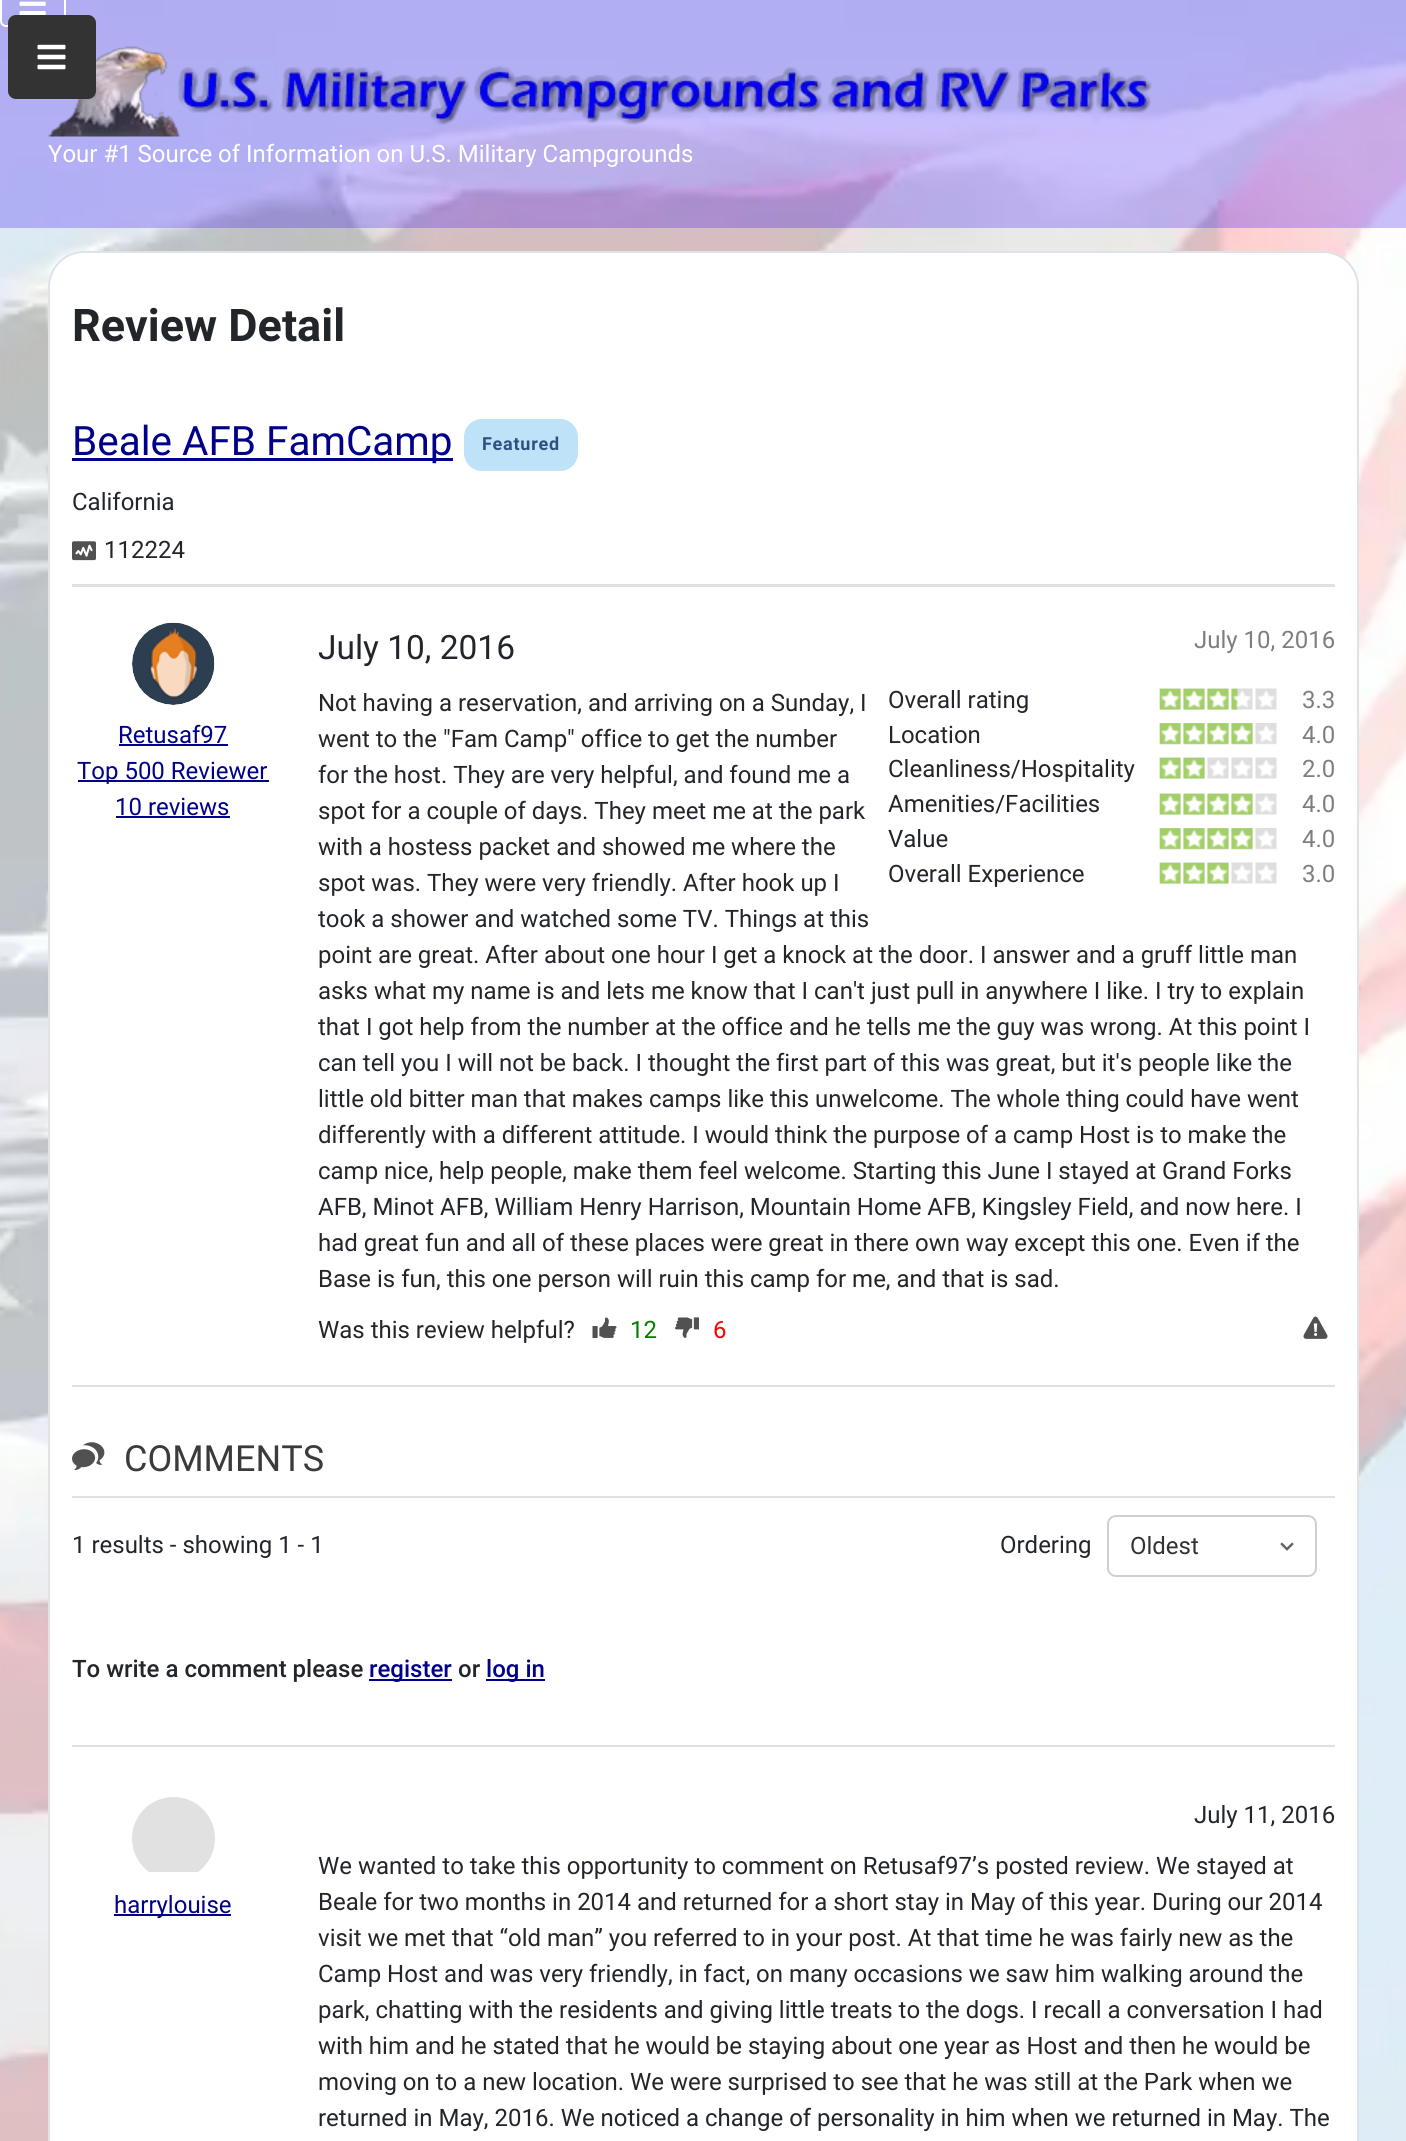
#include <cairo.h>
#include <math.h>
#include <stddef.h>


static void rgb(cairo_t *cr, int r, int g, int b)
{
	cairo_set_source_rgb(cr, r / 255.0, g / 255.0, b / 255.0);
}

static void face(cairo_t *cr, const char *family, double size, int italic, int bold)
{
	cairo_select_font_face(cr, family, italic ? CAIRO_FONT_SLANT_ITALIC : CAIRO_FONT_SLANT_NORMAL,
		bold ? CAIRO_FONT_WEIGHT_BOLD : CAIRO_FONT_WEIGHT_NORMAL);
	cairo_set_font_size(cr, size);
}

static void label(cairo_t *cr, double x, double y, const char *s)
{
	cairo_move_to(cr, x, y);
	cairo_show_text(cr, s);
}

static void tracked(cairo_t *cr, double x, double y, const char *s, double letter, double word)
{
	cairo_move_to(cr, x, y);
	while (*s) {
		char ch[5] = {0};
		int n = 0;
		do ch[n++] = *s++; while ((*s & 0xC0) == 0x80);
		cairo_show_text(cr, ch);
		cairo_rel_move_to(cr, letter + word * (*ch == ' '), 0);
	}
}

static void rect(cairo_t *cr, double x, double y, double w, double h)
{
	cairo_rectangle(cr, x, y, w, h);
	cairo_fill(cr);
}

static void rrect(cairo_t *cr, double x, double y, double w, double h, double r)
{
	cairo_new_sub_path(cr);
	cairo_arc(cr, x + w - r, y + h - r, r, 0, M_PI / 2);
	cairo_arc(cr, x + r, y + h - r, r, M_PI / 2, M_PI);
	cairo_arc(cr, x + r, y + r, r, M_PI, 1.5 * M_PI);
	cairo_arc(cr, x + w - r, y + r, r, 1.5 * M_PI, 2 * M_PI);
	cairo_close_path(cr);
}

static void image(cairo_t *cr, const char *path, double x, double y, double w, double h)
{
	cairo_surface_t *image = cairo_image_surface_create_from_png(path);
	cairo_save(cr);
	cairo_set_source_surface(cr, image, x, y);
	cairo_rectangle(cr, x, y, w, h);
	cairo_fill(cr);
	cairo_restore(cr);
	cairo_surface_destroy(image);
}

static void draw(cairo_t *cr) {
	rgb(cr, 255, 255, 255);
	cairo_paint(cr);
	image(cr, "image0.png", 0, 0, 1406, 2141);
	cairo_set_source_rgba(cr, 0.188, 0.012, 0.98, 0.25);
	rect(cr, 0, 0, 1406, 228);
	rrect(cr, 1, -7, 64, 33, 5);
	rgb(cr, 255, 255, 255);
	cairo_stroke(cr);
	image(cr, "image1.png", 19, 1, 27, 14);
	image(cr, "image3.png", 48, 46, 1104, 91);
	rgb(cr, 51, 51, 51);
	rrect(cr, 8, 15, 88, 84, 8);
	cairo_fill(cr);
	image(cr, "image2.png", 37, 44, 29, 26);
	face(cr, "Roboto", 24, 0, 0);
	rgb(cr, 255, 255, 255);
	label(cr, 48, 162, "Your #1 Source of Information on U.S. Military Campgrounds");
	rrect(cr, 49, 252, 1309, 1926, 35);
	cairo_fill_preserve(cr);
	rgb(cr, 223, 227, 231);
	cairo_stroke(cr);
	face(cr, "Roboto", 45, 0, 1);
	rgb(cr, 34, 38, 42);
	label(cr, 72, 341, "Review Detail");
	rgb(cr, 225, 225, 225);
	rect(cr, 72, 584, 1263, 3);
	rgb(cr, 0, 0, 139);
	rect(cr, 72, 458, 381, 3);
	face(cr, "Roboto", 40.5, 0, 0);
	label(cr, 72, 455, "Beale AFB FamCamp");
	rgb(cr, 190, 227, 248);
	rrect(cr, 464, 419, 114, 52, 18);
	cairo_fill(cr);
	face(cr, "Roboto", 18, 0, 1);
	rgb(cr, 44, 82, 130);
	tracked(cr, 482, 450, "Featured", 0.75, 0);
	face(cr, "Roboto", 24, 0, 0);
	rgb(cr, 34, 38, 42);
	label(cr, 72, 510, "California");
	image(cr, "image4.png", 72, 541, 24, 20);
	label(cr, 104, 558, "112224");
	rgb(cr, 225, 225, 225);
	rect(cr, 72, 1385, 1263, 2);
	image(cr, "image5.png", 132, 622, 83, 83);
	rgb(cr, 0, 0, 139);
	label(cr, 118, 743, "Retusaf97");
	rect(cr, 119, 744, 109, 2);
	rect(cr, 78, 780, 191, 2);
	label(cr, 77, 779, "Top 500 Reviewer");
	label(cr, 115, 815, "10 reviews");
	rect(cr, 116, 816, 114, 2);
	face(cr, "Roboto", 33.5, 0, 0);
	rgb(cr, 34, 38, 42);
	label(cr, 318, 659, "July 10, 2016");
	face(cr, "Roboto", 24, 0, 0);
	rgb(cr, 126, 126, 126);
	label(cr, 1194, 648, "July 10, 2016");
	rgb(cr, 34, 38, 42);
	label(cr, 888, 708, "Overall rating");
	image(cr, "image6.png", 1159, 688, 118, 22);
	image(cr, "image7.png", 1159, 688, 79, 22);
	rgb(cr, 126, 126, 126);
	label(cr, 1302, 708, "3.3");
	rgb(cr, 34, 38, 42);
	label(cr, 888, 743, "Location");
	image(cr, "image8.png", 1159, 723, 118, 22);
	image(cr, "image9.png", 1159, 723, 94, 22);
	rgb(cr, 126, 126, 126);
	label(cr, 1302, 743, "4.0");
	rgb(cr, 34, 38, 42);
	label(cr, 888, 777, "Cleanliness/Hospitality");
	image(cr, "image10.png", 1159, 757, 118, 22);
	image(cr, "image11.png", 1159, 757, 46, 22);
	rgb(cr, 126, 126, 126);
	label(cr, 1302, 777, "2.0");
	rgb(cr, 34, 38, 42);
	label(cr, 888, 812, "Amenities/Facilities");
	image(cr, "image12.png", 1159, 793, 118, 22);
	image(cr, "image13.png", 1159, 793, 94, 22);
	rgb(cr, 126, 126, 126);
	label(cr, 1302, 812, "4.0");
	rgb(cr, 34, 38, 42);
	label(cr, 888, 847, "Value");
	image(cr, "image14.png", 1159, 828, 118, 22);
	image(cr, "image15.png", 1159, 828, 94, 22);
	rgb(cr, 126, 126, 126);
	label(cr, 1302, 847, "4.0");
	rgb(cr, 34, 38, 42);
	label(cr, 888, 882, "Overall Experience");
	image(cr, "image16.png", 1159, 862, 118, 22);
	image(cr, "image17.png", 1159, 862, 70, 22);
	rgb(cr, 126, 126, 126);
	label(cr, 1302, 882, "3.0");
	rgb(cr, 34, 38, 42);
	label(cr, 318, 711, "Not having a reservation, and arriving on a Sunday, I");
	label(cr, 318, 747, "went to the \"Fam Camp\" office to get the number");
	label(cr, 318, 783, "for the host. They are very helpful, and found me a");
	label(cr, 318, 819, "spot for a couple of days. They meet me at the park");
	label(cr, 318, 855, "with a hostess packet and showed me where the");
	label(cr, 318, 891, "spot was. They were very friendly. After hook up I");
	label(cr, 318, 927, "took a shower and watched some TV. Things at this");
	label(cr, 318, 963, "point are great. After about one hour I get a knock at the door. I answer and a gruff little man");
	label(cr, 318, 999, "asks what my name is and lets me know that I can't just pull in anywhere I like. I try to explain");
	label(cr, 318, 1035, "that I got help from the number at the office and he tells me the guy was wrong. At this point I");
	label(cr, 318, 1071, "can tell you I will not be back. I thought the first part of this was great, but it's people like the");
	label(cr, 318, 1107, "little old bitter man that makes camps like this unwelcome. The whole thing could have went");
	label(cr, 318, 1143, "differently with a different attitude. I would think the purpose of a camp Host is to make the");
	label(cr, 318, 1179, "camp nice, help people, make them feel welcome. Starting this June I stayed at Grand Forks");
	label(cr, 318, 1215, "AFB, Minot AFB, William Henry Harrison, Mountain Home AFB, Kingsley Field, and now here. I");
	label(cr, 318, 1251, "had great fun and all of these places were great in there own way except this one. Even if the");
	label(cr, 318, 1287, "Base is fun, this one person will ruin this camp for me, and that is sad.");
	label(cr, 318, 1338, "Was this review helpful?");
	image(cr, "image18.png", 592, 1317, 25, 21);
	rgb(cr, 0, 128, 0);
	label(cr, 630, 1338, "12");
	image(cr, "image19.png", 675, 1317, 24, 21);
	rgb(cr, 255, 0, 0);
	label(cr, 713, 1338, "6");
	image(cr, "image20.png", 1303, 1316, 25, 23);
	rgb(cr, 225, 225, 225);
	rect(cr, 72, 1496, 1263, 2);
	image(cr, "image21.png", 72, 1442, 33, 28);
	face(cr, "Roboto", 36, 0, 0);
	rgb(cr, 59, 59, 59);
	label(cr, 124, 1471, "COMMENTS");
	face(cr, "Roboto", 24, 0, 0);
	rgb(cr, 34, 38, 42);
	label(cr, 72, 1553, "1 results - showing 1 - 1");
	label(cr, 1000, 1553, "Ordering");
	image(cr, "image22.png", 1280, 1542, 14, 9);
	rrect(cr, 1108, 1516, 208, 60, 8);
	rgb(cr, 207, 207, 207);
	cairo_stroke(cr);
	rgb(cr, 51, 51, 51);
	label(cr, 1130, 1554, "Oldest");
	rgb(cr, 225, 225, 225);
	rect(cr, 72, 1745, 1263, 2);
	face(cr, "Roboto Medium", 24, 0, 0);
	rgb(cr, 34, 38, 42);
	label(cr, 72, 1677, "To write a comment please");
	rgb(cr, 0, 0, 139);
	rect(cr, 369, 1679, 83, 2);
	label(cr, 369, 1677, "register");
	rgb(cr, 34, 38, 42);
	label(cr, 458, 1677, "or");
	rgb(cr, 0, 0, 139);
	rect(cr, 486, 1679, 59, 2);
	label(cr, 486, 1677, "log in");
	cairo_save(cr);
	rrect(cr, 132, 1797, 83, 83, 41.5);
	cairo_clip(cr);
	rgb(cr, 225, 225, 225);
	cairo_new_path(cr);
	cairo_move_to(cr, 173.5, 1797);
	cairo_curve_to(cr, 196.5, 1797, 215, 1815.5, 215, 1838.5);
	cairo_line_to(cr, 215, 1872);
	cairo_line_to(cr, 132, 1872);
	cairo_line_to(cr, 132, 1838.5);
	cairo_curve_to(cr, 132, 1815.5, 150.5, 1797, 173.5, 1797);
	cairo_close_path(cr);
	cairo_fill(cr);
	cairo_restore(cr);
	rect(cr, 114, 1914, 117, 2);
	face(cr, "Roboto", 24, 0, 0);
	label(cr, 114, 1913, "harrylouise");
	rgb(cr, 34, 38, 42);
	label(cr, 1194, 1823, "July 11, 2016");
	label(cr, 318, 1874, "We wanted to take this opportunity to comment on Retusaf97’s posted review. We stayed at");
	label(cr, 318, 1910, "Beale for two months in 2014 and returned for a short stay in May of this year. During our 2014");
	label(cr, 318, 1946, "visit we met that “old man” you referred to in your post. At that time he was fairly new as the");
	label(cr, 318, 1982, "Camp Host and was very friendly, in fact, on many occasions we saw him walking around the");
	label(cr, 318, 2018, "park, chatting with the residents and giving little treats to the dogs. I recall a conversation I had");
	label(cr, 318, 2054, "with him and he stated that he would be staying about one year as Host and then he would be");
	label(cr, 318, 2090, "moving on to a new location. We were surprised to see that he was still at the Park when we");
	label(cr, 318, 2126, "returned in May, 2016. We noticed a change of personality in him when we returned in May. The");
}

int main(void) {
	cairo_surface_t *surface = cairo_image_surface_create(CAIRO_FORMAT_RGB24, 1406, 2141);
	cairo_t *cr = cairo_create(surface);
	cairo_font_options_t *options = cairo_font_options_create();
	cairo_font_options_set_hint_metrics(options, CAIRO_HINT_METRICS_OFF);
	cairo_font_options_set_hint_style(options, CAIRO_HINT_STYLE_NONE);
	cairo_set_font_options(cr, options);
	cairo_set_miter_limit(cr, 4);
	draw(cr);
	cairo_surface_write_to_png(surface, "render.png");
	cairo_font_options_destroy(options);
	cairo_destroy(cr);
	cairo_surface_destroy(surface);
	return 0;
}
